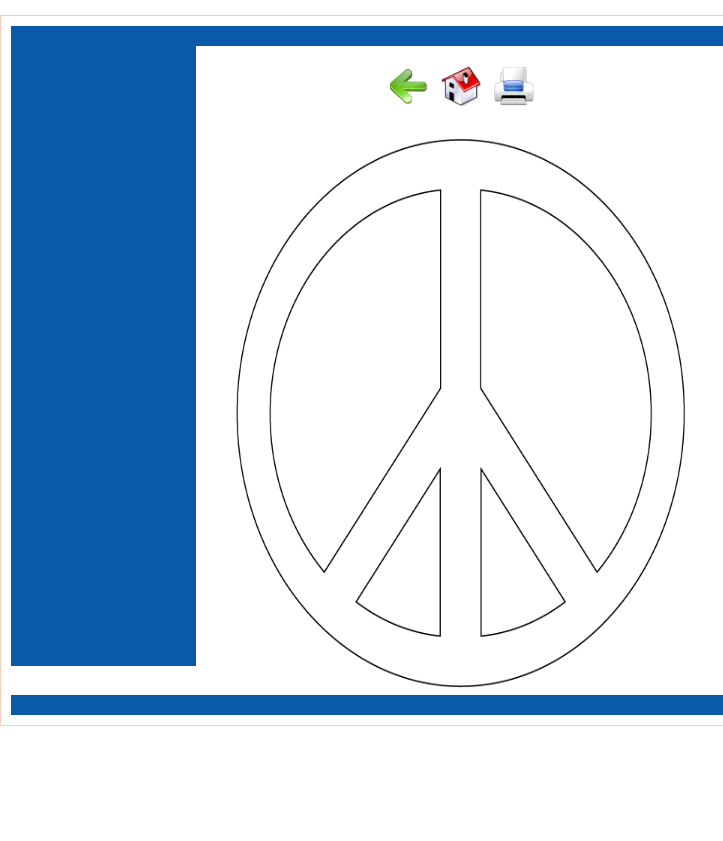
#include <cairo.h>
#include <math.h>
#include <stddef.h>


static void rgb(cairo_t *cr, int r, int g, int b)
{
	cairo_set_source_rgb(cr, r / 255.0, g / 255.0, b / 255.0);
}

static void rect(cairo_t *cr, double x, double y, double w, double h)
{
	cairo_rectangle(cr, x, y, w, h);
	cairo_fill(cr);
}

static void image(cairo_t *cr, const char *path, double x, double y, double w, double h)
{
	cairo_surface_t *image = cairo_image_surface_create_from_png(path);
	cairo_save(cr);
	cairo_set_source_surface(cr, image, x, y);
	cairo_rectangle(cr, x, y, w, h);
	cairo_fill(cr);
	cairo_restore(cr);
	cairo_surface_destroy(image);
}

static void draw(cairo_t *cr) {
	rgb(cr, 255, 255, 255);
	cairo_paint(cr);
	cairo_rectangle(cr, 0.5, 15.5, 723, 710);
	rgb(cr, 252, 204, 183);
	cairo_set_line_width(cr, 1);
	cairo_stroke(cr);
	rgb(cr, 9, 91, 170);
	rect(cr, 11, 26, 712, 20);
	rect(cr, 11, 46, 185, 620);
	image(cr, "image0.png", 390, 69, 38, 35);
	image(cr, "image1.png", 441, 66, 40, 40);
	image(cr, "image2.png", 494, 66, 40, 40);
	image(cr, "image3.png", 236, 139, 450, 549);
	rect(cr, 11, 695, 712, 20);
}

int main(void) {
	cairo_surface_t *surface = cairo_image_surface_create(CAIRO_FORMAT_RGB24, 723, 841);
	cairo_t *cr = cairo_create(surface);
	cairo_font_options_t *options = cairo_font_options_create();
	cairo_font_options_set_hint_metrics(options, CAIRO_HINT_METRICS_OFF);
	cairo_font_options_set_hint_style(options, CAIRO_HINT_STYLE_NONE);
	cairo_set_font_options(cr, options);
	cairo_set_miter_limit(cr, 4);
	draw(cr);
	cairo_surface_write_to_png(surface, "render.png");
	cairo_font_options_destroy(options);
	cairo_destroy(cr);
	cairo_surface_destroy(surface);
	return 0;
}
